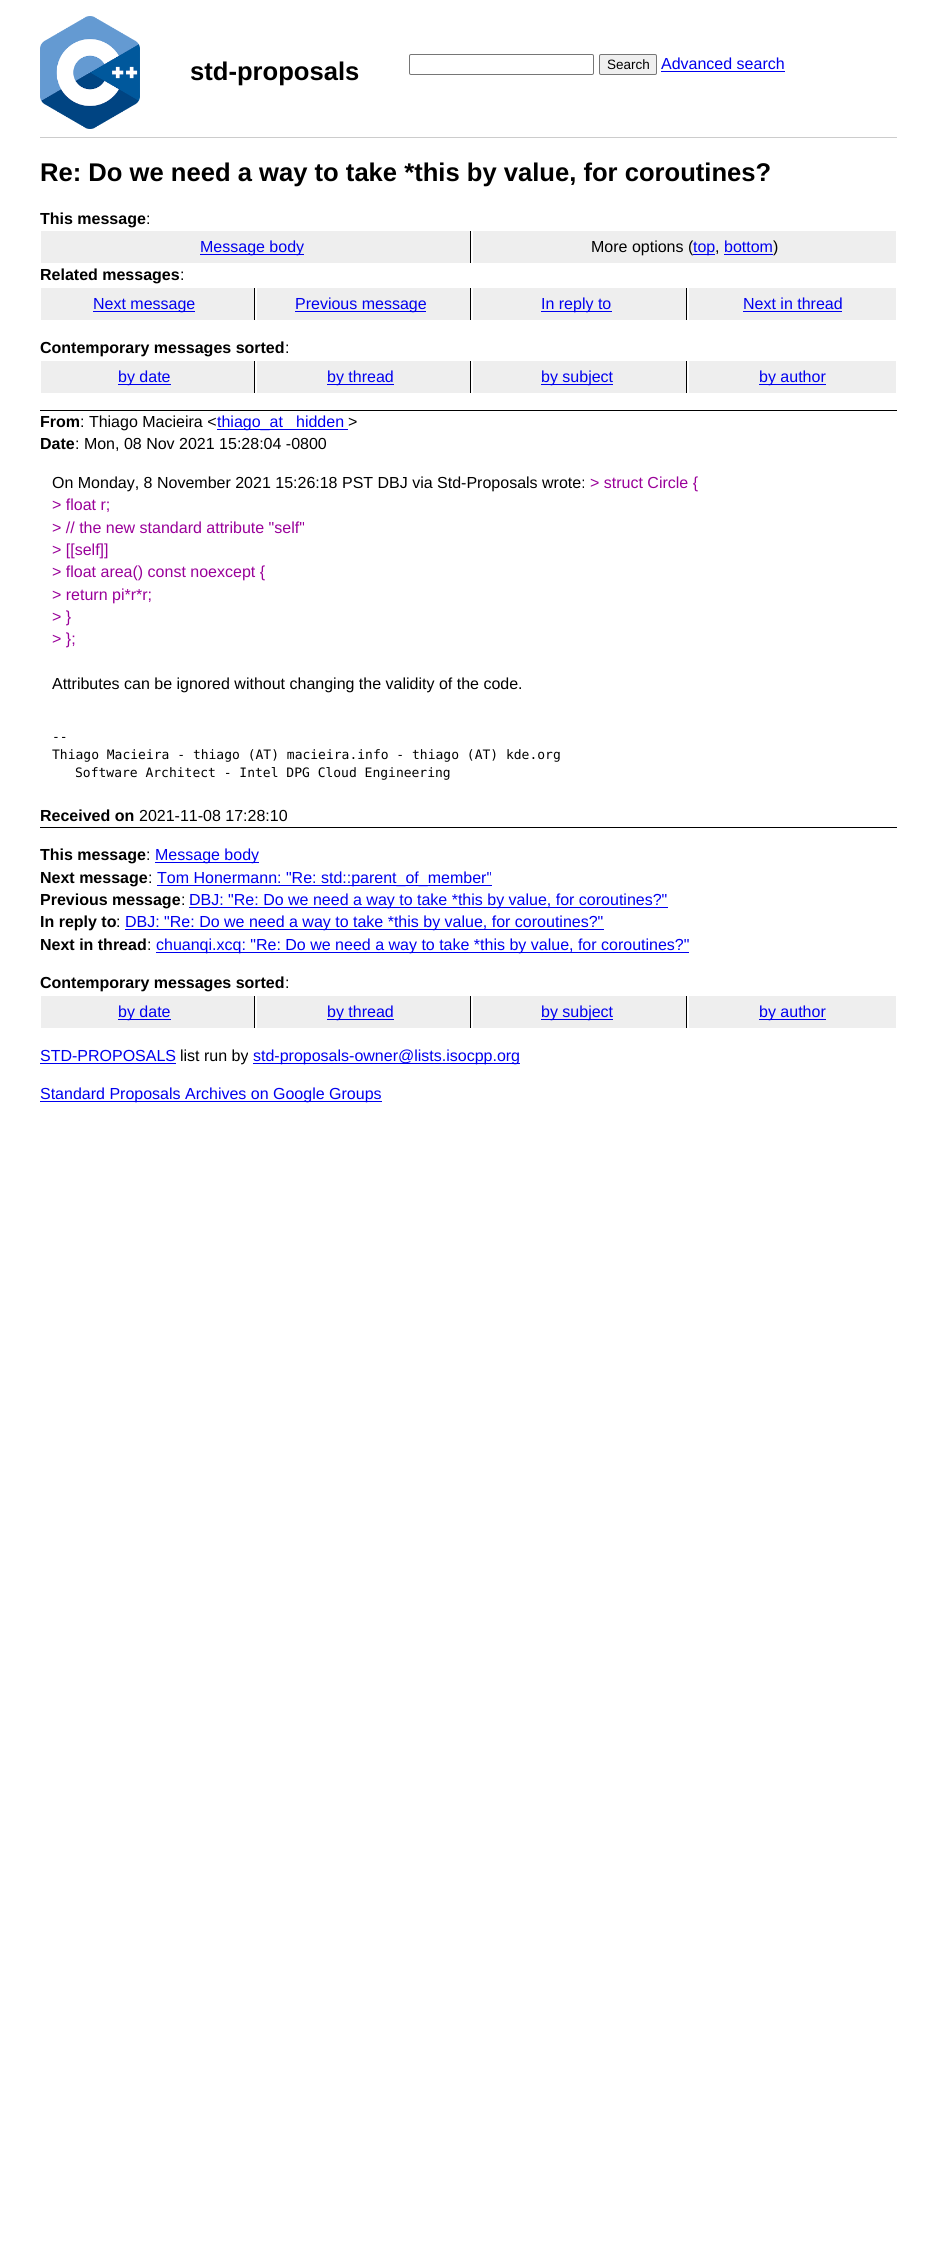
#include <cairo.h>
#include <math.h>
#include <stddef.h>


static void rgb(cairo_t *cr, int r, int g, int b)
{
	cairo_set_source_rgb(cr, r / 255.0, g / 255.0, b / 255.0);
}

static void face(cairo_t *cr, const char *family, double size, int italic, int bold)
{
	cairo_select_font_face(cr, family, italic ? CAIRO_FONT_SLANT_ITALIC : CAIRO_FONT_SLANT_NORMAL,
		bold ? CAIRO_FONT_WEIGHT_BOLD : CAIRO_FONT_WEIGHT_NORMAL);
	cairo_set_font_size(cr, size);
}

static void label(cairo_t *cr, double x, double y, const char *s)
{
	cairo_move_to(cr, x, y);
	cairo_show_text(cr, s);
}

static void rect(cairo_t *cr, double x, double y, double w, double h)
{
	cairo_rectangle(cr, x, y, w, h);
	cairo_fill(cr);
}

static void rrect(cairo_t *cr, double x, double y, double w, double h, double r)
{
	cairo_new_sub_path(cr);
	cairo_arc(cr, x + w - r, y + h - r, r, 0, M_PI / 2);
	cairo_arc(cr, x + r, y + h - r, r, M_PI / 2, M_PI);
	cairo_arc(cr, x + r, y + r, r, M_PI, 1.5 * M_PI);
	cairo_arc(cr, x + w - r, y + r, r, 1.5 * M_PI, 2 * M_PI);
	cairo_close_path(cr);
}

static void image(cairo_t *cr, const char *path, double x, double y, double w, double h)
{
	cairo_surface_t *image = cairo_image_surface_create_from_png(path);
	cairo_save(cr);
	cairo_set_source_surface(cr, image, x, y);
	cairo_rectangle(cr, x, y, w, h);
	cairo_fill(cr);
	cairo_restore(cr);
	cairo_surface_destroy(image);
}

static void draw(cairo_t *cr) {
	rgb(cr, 255, 255, 255);
	cairo_paint(cr);
	image(cr, "image0.png", 40, 16, 100, 113);
	face(cr, "Liberation Sans", 25.6, 0, 1);
	rgb(cr, 0, 0, 0);
	label(cr, 190, 80, "std-proposals");
	rrect(cr, 409.5, 54.5, 184, 20, 1.5);
	rgb(cr, 118, 118, 118);
	cairo_set_line_width(cr, 1);
	cairo_stroke(cr);
	rgb(cr, 239, 239, 239);
	rrect(cr, 599.5, 54.5, 57, 20, 1.5);
	cairo_fill_preserve(cr);
	rgb(cr, 118, 118, 118);
	cairo_stroke(cr);
	face(cr, "Liberation Sans", 13.5, 0, 0);
	rgb(cr, 0, 0, 0);
	label(cr, 607, 69, "Search");
	face(cr, "Liberation Sans", 16, 0, 0);
	rgb(cr, 0, 0, 238);
	label(cr, 661, 69, "Advanced search");
	rect(cr, 661, 71, 124, 1);
	rgb(cr, 204, 204, 204);
	rect(cr, 40, 137, 857, 1);
	face(cr, "Liberation Sans", 25.6, 0, 1);
	rgb(cr, 0, 0, 0);
	label(cr, 40, 181, "Re: Do we need a way to take *this by value, for coroutines?");
	face(cr, "Liberation Sans", 16, 0, 1);
	label(cr, 40, 224, "This message");
	face(cr, "Liberation Sans", 16, 0, 0);
	label(cr, 146, 224, ":");
	rgb(cr, 238, 238, 238);
	rect(cr, 41, 231, 429, 32);
	rgb(cr, 0, 0, 0);
	rect(cr, 470, 231, 1, 32);
	rgb(cr, 0, 0, 238);
	rect(cr, 200, 254, 104, 1);
	label(cr, 200, 252, "Message body");
	rgb(cr, 238, 238, 238);
	rect(cr, 473, 231, 423, 32);
	rgb(cr, 0, 0, 0);
	label(cr, 591, 252, "More options (");
	rgb(cr, 0, 0, 238);
	rect(cr, 693, 254, 22, 1);
	label(cr, 693, 252, "top");
	rgb(cr, 0, 0, 0);
	label(cr, 715, 252, ",");
	rgb(cr, 0, 0, 238);
	label(cr, 724, 252, "bottom");
	rect(cr, 724, 254, 49, 1);
	rgb(cr, 0, 0, 0);
	label(cr, 773, 252, ")");
	face(cr, "Liberation Sans", 16, 0, 1);
	label(cr, 40, 280, "Related messages");
	face(cr, "Liberation Sans", 16, 0, 0);
	label(cr, 180, 280, ":");
	rgb(cr, 238, 238, 238);
	rect(cr, 41, 288, 213, 32);
	rgb(cr, 0, 0, 0);
	rect(cr, 254, 288, 1, 32);
	rgb(cr, 0, 0, 238);
	rect(cr, 93, 311, 102, 1);
	label(cr, 93, 309, "Next message");
	rgb(cr, 238, 238, 238);
	rect(cr, 257, 288, 213, 32);
	rgb(cr, 0, 0, 0);
	rect(cr, 470, 288, 1, 32);
	rgb(cr, 0, 0, 238);
	rect(cr, 295, 311, 131, 1);
	label(cr, 295, 309, "Previous message");
	rgb(cr, 238, 238, 238);
	rect(cr, 473, 288, 213, 32);
	rgb(cr, 0, 0, 0);
	rect(cr, 686, 288, 1, 32);
	rgb(cr, 0, 0, 238);
	rect(cr, 541, 311, 71, 1);
	label(cr, 541, 309, "In reply to");
	rgb(cr, 238, 238, 238);
	rect(cr, 689, 288, 207, 32);
	rgb(cr, 0, 0, 238);
	label(cr, 743, 309, "Next in thread");
	rect(cr, 743, 311, 99, 1);
	face(cr, "Liberation Sans", 16, 0, 1);
	rgb(cr, 0, 0, 0);
	label(cr, 40, 353, "Contemporary messages sorted");
	face(cr, "Liberation Sans", 16, 0, 0);
	label(cr, 285, 353, ":");
	rgb(cr, 238, 238, 238);
	rect(cr, 41, 361, 213, 32);
	rgb(cr, 0, 0, 0);
	rect(cr, 254, 361, 1, 32);
	rgb(cr, 0, 0, 238);
	rect(cr, 118, 384, 53, 1);
	label(cr, 118, 382, "by date");
	rgb(cr, 238, 238, 238);
	rect(cr, 257, 361, 213, 32);
	rgb(cr, 0, 0, 0);
	rect(cr, 470, 361, 1, 32);
	rgb(cr, 0, 0, 238);
	rect(cr, 327, 384, 67, 1);
	label(cr, 327, 382, "by thread");
	rgb(cr, 238, 238, 238);
	rect(cr, 473, 361, 213, 32);
	rgb(cr, 0, 0, 0);
	rect(cr, 686, 361, 1, 32);
	rgb(cr, 0, 0, 238);
	rect(cr, 541, 384, 72, 1);
	label(cr, 541, 382, "by subject");
	rgb(cr, 238, 238, 238);
	rect(cr, 689, 361, 207, 32);
	rgb(cr, 0, 0, 238);
	rect(cr, 759, 384, 67, 1);
	label(cr, 759, 382, "by author");
	rgb(cr, 0, 0, 0);
	rect(cr, 40, 410, 857, 1);
	rect(cr, 40, 827, 857, 1);
	face(cr, "Liberation Sans", 16, 0, 1);
	label(cr, 40, 427, "From");
	face(cr, "Liberation Sans", 16, 0, 0);
	label(cr, 80, 427, ": Thiago Macieira <");
	rgb(cr, 0, 0, 238);
	rect(cr, 217, 429, 131, 1);
	label(cr, 217, 427, "thiago_at");
	label(cr, 296, 427, "hidden");
	rgb(cr, 0, 0, 0);
	label(cr, 348, 427, ">");
	face(cr, "Liberation Sans", 16, 0, 1);
	label(cr, 40, 449, "Date");
	face(cr, "Liberation Sans", 16, 0, 0);
	label(cr, 75, 449, ": Mon, 08 Nov 2021 15:28:04 -0800");
	label(cr, 52, 488, "On Monday, 8 November 2021 15:26:18 PST DBJ via Std-Proposals wrote:");
	rgb(cr, 153, 0, 153);
	label(cr, 590, 488, "> struct Circle {");
	label(cr, 52, 510, "> float r;");
	label(cr, 52, 533, "> // the new standard attribute \"self\"");
	label(cr, 52, 555, "> [[self]]");
	label(cr, 52, 577, "> float area() const noexcept {");
	label(cr, 52, 600, "> return pi*r*r;");
	label(cr, 52, 622, "> }");
	label(cr, 52, 644, "> };");
	rgb(cr, 0, 0, 0);
	label(cr, 52, 689, "Attributes can be ignored without changing the validity of the code.");
	face(cr, "DejaVu Sans Mono", 13, 0, 0);
	label(cr, 52, 741, "--");
	label(cr, 52, 759, "Thiago Macieira - thiago (AT) macieira.info - thiago (AT) kde.org");
	label(cr, 75, 777, "Software Architect - Intel DPG Cloud Engineering");
	face(cr, "Liberation Sans", 16, 0, 1);
	label(cr, 40, 821, "Received on");
	face(cr, "Liberation Sans", 16, 0, 0);
	label(cr, 139, 821, "2021-11-08 17:28:10");
	face(cr, "Liberation Sans", 16, 0, 1);
	label(cr, 40, 860, "This message");
	face(cr, "Liberation Sans", 16, 0, 0);
	label(cr, 146, 860, ":");
	rgb(cr, 0, 0, 238);
	rect(cr, 155, 862, 104, 1);
	label(cr, 155, 860, "Message body");
	face(cr, "Liberation Sans", 16, 0, 1);
	rgb(cr, 0, 0, 0);
	label(cr, 40, 883, "Next message");
	face(cr, "Liberation Sans", 16, 0, 0);
	label(cr, 148, 883, ":");
	rgb(cr, 0, 0, 238);
	rect(cr, 157, 885, 335, 1);
	label(cr, 157, 883, "Tom Honermann: \"Re: std::parent_of_member\"");
	face(cr, "Liberation Sans", 16, 0, 1);
	rgb(cr, 0, 0, 0);
	label(cr, 40, 905, "Previous message");
	face(cr, "Liberation Sans", 16, 0, 0);
	label(cr, 181, 905, ":");
	rgb(cr, 0, 0, 238);
	rect(cr, 189, 907, 479, 1);
	label(cr, 189, 905, "DBJ: \"Re: Do we need a way to take *this by value, for coroutines?\"");
	face(cr, "Liberation Sans", 16, 0, 1);
	rgb(cr, 0, 0, 0);
	label(cr, 40, 927, "In reply to");
	face(cr, "Liberation Sans", 16, 0, 0);
	label(cr, 116, 927, ":");
	rgb(cr, 0, 0, 238);
	rect(cr, 125, 929, 479, 1);
	label(cr, 125, 927, "DBJ: \"Re: Do we need a way to take *this by value, for coroutines?\"");
	face(cr, "Liberation Sans", 16, 0, 1);
	rgb(cr, 0, 0, 0);
	label(cr, 40, 950, "Next in thread");
	face(cr, "Liberation Sans", 16, 0, 0);
	label(cr, 147, 950, ":");
	rgb(cr, 0, 0, 238);
	rect(cr, 156, 952, 533, 1);
	label(cr, 156, 950, "chuanqi.xcq: \"Re: Do we need a way to take *this by value, for coroutines?\"");
	face(cr, "Liberation Sans", 16, 0, 1);
	rgb(cr, 0, 0, 0);
	label(cr, 40, 988, "Contemporary messages sorted");
	face(cr, "Liberation Sans", 16, 0, 0);
	label(cr, 285, 988, ":");
	rgb(cr, 238, 238, 238);
	rect(cr, 41, 996, 213, 32);
	rgb(cr, 0, 0, 0);
	rect(cr, 254, 996, 1, 32);
	rgb(cr, 0, 0, 238);
	rect(cr, 118, 1019, 53, 1);
	label(cr, 118, 1017, "by date");
	rgb(cr, 238, 238, 238);
	rect(cr, 257, 996, 213, 32);
	rgb(cr, 0, 0, 0);
	rect(cr, 470, 996, 1, 32);
	rgb(cr, 0, 0, 238);
	rect(cr, 327, 1019, 67, 1);
	label(cr, 327, 1017, "by thread");
	rgb(cr, 238, 238, 238);
	rect(cr, 473, 996, 213, 32);
	rgb(cr, 0, 0, 0);
	rect(cr, 686, 996, 1, 32);
	rgb(cr, 0, 0, 238);
	rect(cr, 541, 1019, 72, 1);
	label(cr, 541, 1017, "by subject");
	rgb(cr, 238, 238, 238);
	rect(cr, 689, 996, 207, 32);
	rgb(cr, 0, 0, 238);
	rect(cr, 759, 1019, 67, 1);
	label(cr, 759, 1017, "by author");
	label(cr, 40, 1061, "STD-PROPOSALS");
	rect(cr, 40, 1063, 136, 1);
	rgb(cr, 0, 0, 0);
	label(cr, 180, 1061, "list run by");
	rgb(cr, 0, 0, 238);
	rect(cr, 253, 1063, 267, 1);
	label(cr, 253, 1061, "std-proposals-owner@lists.isocpp.org");
	rect(cr, 40, 1101, 342, 1);
	label(cr, 40, 1099, "Standard Proposals Archives on Google Groups");
}

int main(void) {
	cairo_surface_t *surface = cairo_image_surface_create(CAIRO_FORMAT_RGB24, 937, 2265);
	cairo_t *cr = cairo_create(surface);
	cairo_font_options_t *options = cairo_font_options_create();
	cairo_font_options_set_hint_metrics(options, CAIRO_HINT_METRICS_OFF);
	cairo_font_options_set_hint_style(options, CAIRO_HINT_STYLE_NONE);
	cairo_set_font_options(cr, options);
	cairo_set_miter_limit(cr, 4);
	draw(cr);
	cairo_surface_write_to_png(surface, "render.png");
	cairo_font_options_destroy(options);
	cairo_destroy(cr);
	cairo_surface_destroy(surface);
	return 0;
}
